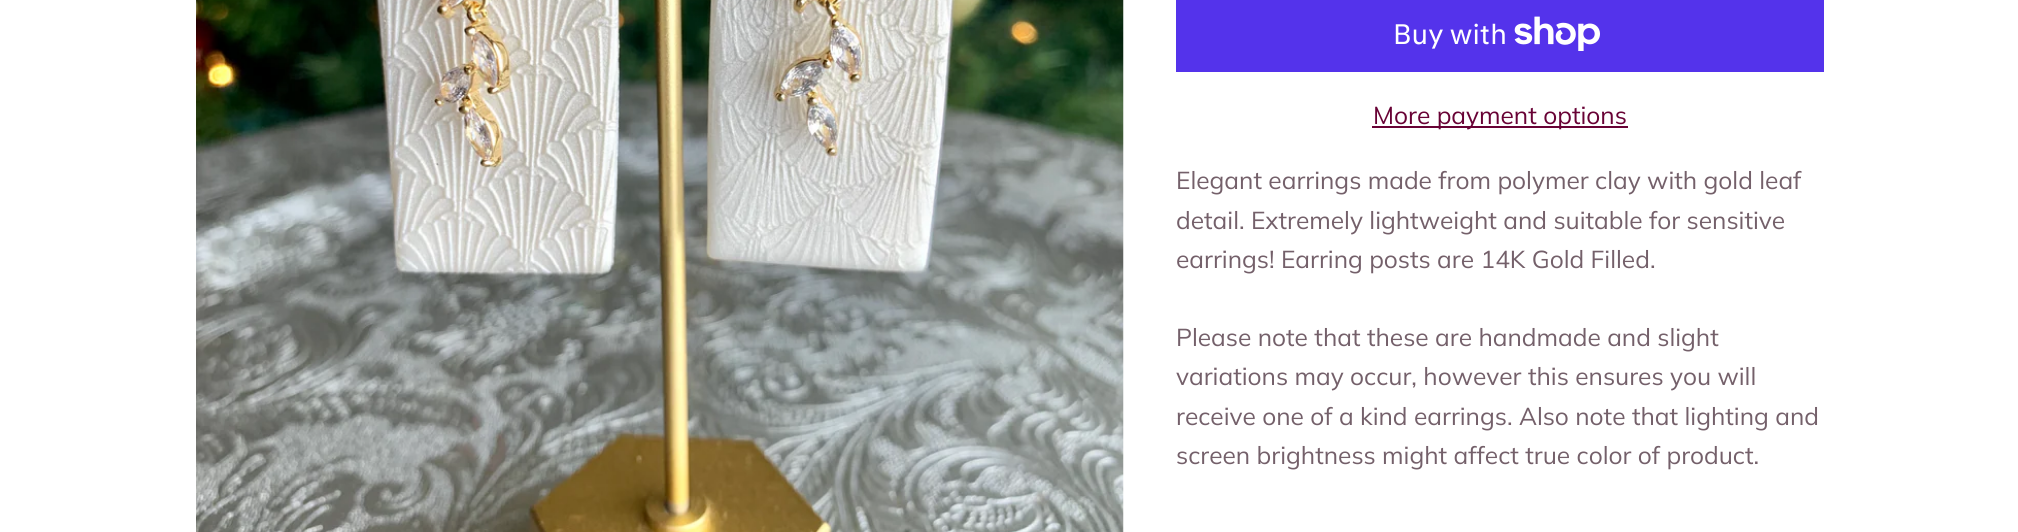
#include <cairo.h>
#include <math.h>
#include <stddef.h>


static void rgb(cairo_t *cr, int r, int g, int b)
{
	cairo_set_source_rgb(cr, r / 255.0, g / 255.0, b / 255.0);
}

static void face(cairo_t *cr, const char *family, double size, int italic, int bold)
{
	cairo_select_font_face(cr, family, italic ? CAIRO_FONT_SLANT_ITALIC : CAIRO_FONT_SLANT_NORMAL,
		bold ? CAIRO_FONT_WEIGHT_BOLD : CAIRO_FONT_WEIGHT_NORMAL);
	cairo_set_font_size(cr, size);
}

static void label(cairo_t *cr, double x, double y, const char *s)
{
	cairo_move_to(cr, x, y);
	cairo_show_text(cr, s);
}

static void rect(cairo_t *cr, double x, double y, double w, double h)
{
	cairo_rectangle(cr, x, y, w, h);
	cairo_fill(cr);
}

static void image(cairo_t *cr, const char *path, double x, double y, double w, double h)
{
	cairo_surface_t *image = cairo_image_surface_create_from_png(path);
	cairo_save(cr);
	cairo_set_source_surface(cr, image, x, y);
	cairo_rectangle(cr, x, y, w, h);
	cairo_fill(cr);
	cairo_restore(cr);
	cairo_surface_destroy(image);
}

static void draw(cairo_t *cr) {
	rgb(cr, 255, 255, 255);
	cairo_paint(cr);
	image(cr, "image0.png", 196, 0, 928, 532);
	rgb(cr, 84, 51, 235);
	rect(cr, 1176, 0, 648, 72);
	face(cr, "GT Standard", 28, 0, 0);
	rgb(cr, 255, 255, 255);
	label(cr, 1393, 44, "Buy with");
	image(cr, "image1.png", 1514, 16, 86, 35);
	rgb(cr, 104, 2, 53);
	rect(cr, 1372, 126, 256, 2);
	face(cr, "Muli", 24.5, 0, 0);
	label(cr, 1373, 124, "More payment options");
	rgb(cr, 116, 96, 106);
	label(cr, 1176, 189, "Elegant earrings made from polymer clay with gold leaf");
	label(cr, 1176, 229, "detail. Extremely lightweight and suitable for sensitive");
	label(cr, 1176, 268, "earrings! Earring posts are 14K Gold Filled.");
	label(cr, 1176, 346, "Please note that these are handmade and slight");
	label(cr, 1176, 385, "variations may occur, however this ensures you will");
	label(cr, 1176, 425, "receive one of a kind earrings. Also note that lighting and");
	label(cr, 1176, 464, "screen brightness might affect true color of product.");
}

int main(void) {
	cairo_surface_t *surface = cairo_image_surface_create(CAIRO_FORMAT_RGB24, 2018, 532);
	cairo_t *cr = cairo_create(surface);
	cairo_font_options_t *options = cairo_font_options_create();
	cairo_font_options_set_hint_metrics(options, CAIRO_HINT_METRICS_OFF);
	cairo_font_options_set_hint_style(options, CAIRO_HINT_STYLE_NONE);
	cairo_set_font_options(cr, options);
	cairo_set_miter_limit(cr, 4);
	draw(cr);
	cairo_surface_write_to_png(surface, "render.png");
	cairo_font_options_destroy(options);
	cairo_destroy(cr);
	cairo_surface_destroy(surface);
	return 0;
}
